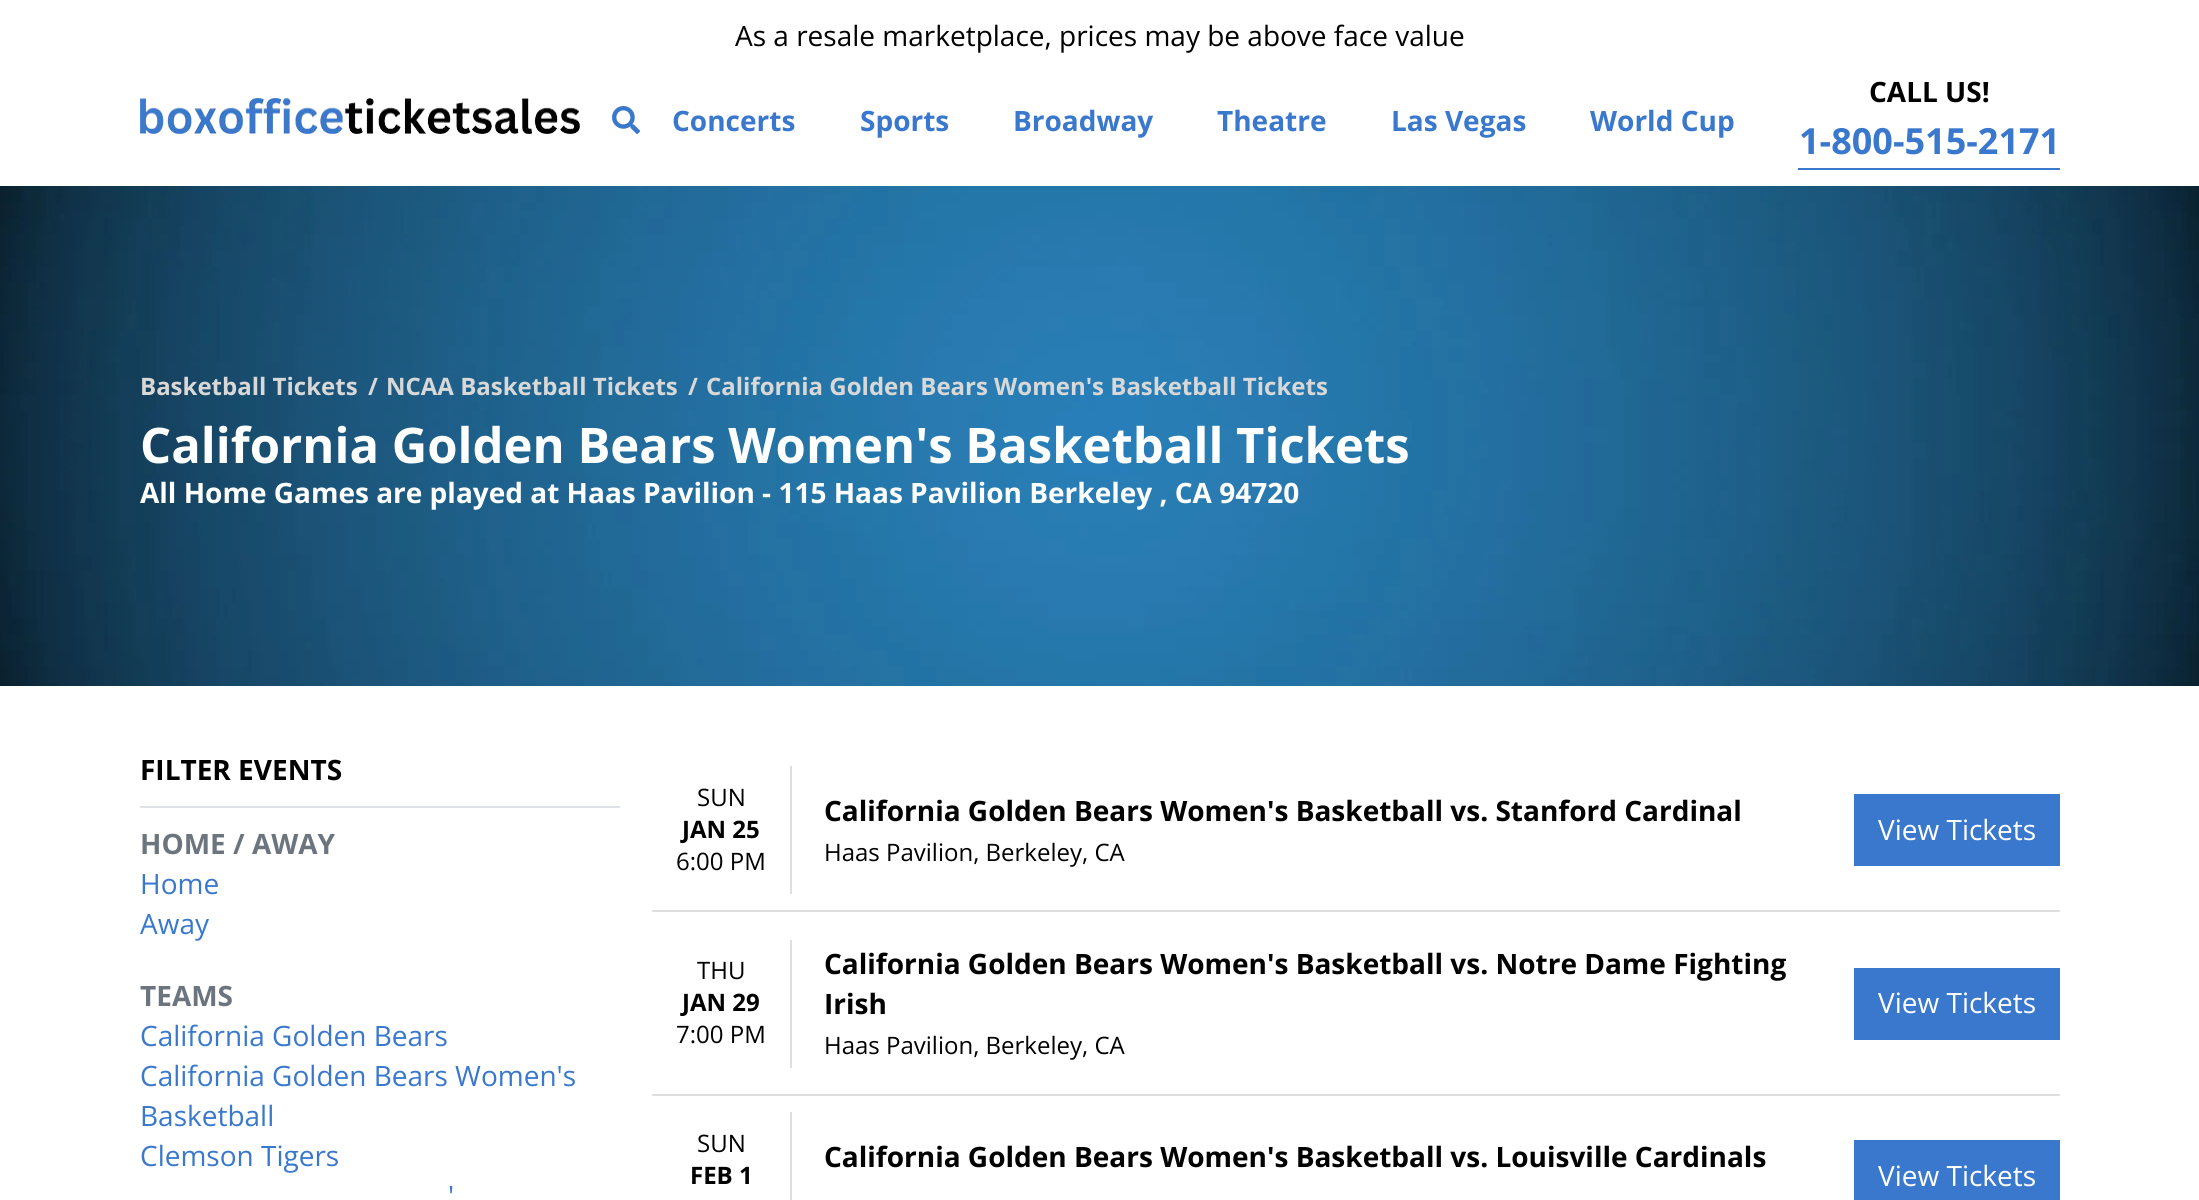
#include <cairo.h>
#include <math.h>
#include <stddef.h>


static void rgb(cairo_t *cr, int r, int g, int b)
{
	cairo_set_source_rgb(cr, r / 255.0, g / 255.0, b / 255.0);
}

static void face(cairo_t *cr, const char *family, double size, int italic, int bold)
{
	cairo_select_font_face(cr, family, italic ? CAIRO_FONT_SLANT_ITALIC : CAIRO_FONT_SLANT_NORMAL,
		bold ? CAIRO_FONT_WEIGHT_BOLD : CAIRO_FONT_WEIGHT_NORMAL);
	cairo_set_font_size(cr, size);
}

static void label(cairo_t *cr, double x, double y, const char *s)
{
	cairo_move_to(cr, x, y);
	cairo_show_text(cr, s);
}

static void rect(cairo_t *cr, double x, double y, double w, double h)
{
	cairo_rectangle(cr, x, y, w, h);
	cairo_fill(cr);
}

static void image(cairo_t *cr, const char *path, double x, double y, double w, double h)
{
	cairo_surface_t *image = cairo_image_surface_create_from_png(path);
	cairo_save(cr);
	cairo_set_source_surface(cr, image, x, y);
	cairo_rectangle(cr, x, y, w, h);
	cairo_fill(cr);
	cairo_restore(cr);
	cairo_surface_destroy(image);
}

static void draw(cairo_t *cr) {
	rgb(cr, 255, 255, 255);
	cairo_paint(cr);
	face(cr, "Open Sans", 28, 0, 0);
	rgb(cr, 0, 0, 0);
	label(cr, 735, 46, "As a resale marketplace, prices may be above face value");
	image(cr, "image0.png", 140, 98, 440, 36);
	image(cr, "image1.png", 612, 106, 28, 28);
	face(cr, "Open Sans", 28, 0, 1);
	rgb(cr, 58, 120, 205);
	label(cr, 672, 131, "Concerts");
	label(cr, 860, 131, "Sports");
	label(cr, 1013, 131, "Broadway");
	label(cr, 1217, 131, "Theatre");
	label(cr, 1391, 131, "Las Vegas");
	label(cr, 1590, 131, "World Cup");
	rgb(cr, 0, 0, 0);
	label(cr, 1869, 102, "CALL US!");
	rgb(cr, 58, 120, 205);
	rect(cr, 1798, 168, 262, 2);
	face(cr, "Open Sans", 36, 0, 1);
	label(cr, 1799, 154, "1-800-515-2171");
	image(cr, "image2.png", 0, 186, 2199, 500);
	face(cr, "Open Sans", 24, 0, 1);
	rgb(cr, 216, 216, 216);
	label(cr, 140, 395, "Basketball Tickets");
	label(cr, 368, 395, "/");
	label(cr, 386, 395, "NCAA Basketball Tickets");
	label(cr, 688, 395, "/");
	label(cr, 706, 395, "California Golden Bears Women's Basketball Tickets");
	face(cr, "Open Sans", 49, 0, 1);
	rgb(cr, 255, 255, 255);
	label(cr, 140, 463, "California Golden Bears Women's Basketball Tickets");
	face(cr, "Open Sans", 28, 0, 1);
	label(cr, 140, 503, "All Home Games are played at Haas Pavilion - 115 Haas Pavilion Berkeley , CA 94720");
	rgb(cr, 222, 226, 230);
	rect(cr, 140, 806, 480, 2);
	rgb(cr, 0, 0, 0);
	label(cr, 140, 780, "FILTER EVENTS");
	rgb(cr, 108, 117, 125);
	label(cr, 140, 854, "HOME / AWAY");
	face(cr, "Open Sans", 28, 0, 0);
	rgb(cr, 58, 120, 205);
	label(cr, 140, 894, "Home");
	label(cr, 140, 934, "Away");
	face(cr, "Open Sans", 28, 0, 1);
	rgb(cr, 108, 117, 125);
	label(cr, 140, 1006, "TEAMS");
	face(cr, "Open Sans", 28, 0, 0);
	rgb(cr, 58, 120, 205);
	label(cr, 140, 1046, "California Golden Bears");
	label(cr, 140, 1086, "California Golden Bears Women's");
	label(cr, 140, 1126, "Basketball");
	label(cr, 140, 1166, "Clemson Tigers");
	label(cr, 448, 1206, "'");
	rgb(cr, 223, 223, 223);
	rect(cr, 652, 910, 1408, 2);
	rect(cr, 790, 766, 2, 128);
	face(cr, "Open Sans", 24, 0, 0);
	rgb(cr, 0, 0, 0);
	label(cr, 697, 806, "SUN");
	face(cr, "Open Sans", 24, 0, 1);
	label(cr, 682, 838, "JAN 25");
	face(cr, "Open Sans", 24, 0, 0);
	label(cr, 676, 870, "6:00 PM");
	face(cr, "Open Sans", 28, 0, 1);
	label(cr, 824, 821, "California Golden Bears Women's Basketball vs. Stanford Cardinal");
	face(cr, "Open Sans", 24, 0, 0);
	label(cr, 824, 861, "Haas Pavilion, Berkeley, CA");
	rgb(cr, 58, 120, 205);
	rect(cr, 1854, 794, 206, 72);
	face(cr, "Open Sans", 28, 0, 0);
	rgb(cr, 255, 255, 255);
	label(cr, 1878, 840, "View Tickets");
	rgb(cr, 223, 223, 223);
	rect(cr, 652, 1094, 1408, 2);
	rect(cr, 790, 940, 2, 128);
	face(cr, "Open Sans", 24, 0, 0);
	rgb(cr, 0, 0, 0);
	label(cr, 697, 979, "THU");
	face(cr, "Open Sans", 24, 0, 1);
	label(cr, 682, 1011, "JAN 29");
	face(cr, "Open Sans", 24, 0, 0);
	label(cr, 676, 1043, "7:00 PM");
	face(cr, "Open Sans", 28, 0, 1);
	label(cr, 824, 974, "California Golden Bears Women's Basketball vs. Notre Dame Fighting");
	label(cr, 824, 1014, "Irish");
	face(cr, "Open Sans", 24, 0, 0);
	label(cr, 824, 1054, "Haas Pavilion, Berkeley, CA");
	rgb(cr, 58, 120, 205);
	rect(cr, 1854, 968, 206, 72);
	face(cr, "Open Sans", 28, 0, 0);
	rgb(cr, 255, 255, 255);
	label(cr, 1878, 1013, "View Tickets");
	rgb(cr, 223, 223, 223);
	rect(cr, 790, 1112, 2, 88);
	face(cr, "Open Sans", 24, 0, 0);
	rgb(cr, 0, 0, 0);
	label(cr, 697, 1152, "SUN");
	face(cr, "Open Sans", 24, 0, 1);
	label(cr, 690, 1184, "FEB 1");
	face(cr, "Open Sans", 28, 0, 1);
	label(cr, 824, 1167, "California Golden Bears Women's Basketball vs. Louisville Cardinals");
	rgb(cr, 58, 120, 205);
	rect(cr, 1854, 1140, 206, 60);
	face(cr, "Open Sans", 28, 0, 0);
	rgb(cr, 255, 255, 255);
	label(cr, 1878, 1186, "View Tickets");
}

int main(void) {
	cairo_surface_t *surface = cairo_image_surface_create(CAIRO_FORMAT_RGB24, 2199, 1200);
	cairo_t *cr = cairo_create(surface);
	cairo_font_options_t *options = cairo_font_options_create();
	cairo_font_options_set_hint_metrics(options, CAIRO_HINT_METRICS_OFF);
	cairo_font_options_set_hint_style(options, CAIRO_HINT_STYLE_NONE);
	cairo_set_font_options(cr, options);
	cairo_set_miter_limit(cr, 4);
	draw(cr);
	cairo_surface_write_to_png(surface, "render.png");
	cairo_font_options_destroy(options);
	cairo_destroy(cr);
	cairo_surface_destroy(surface);
	return 0;
}
